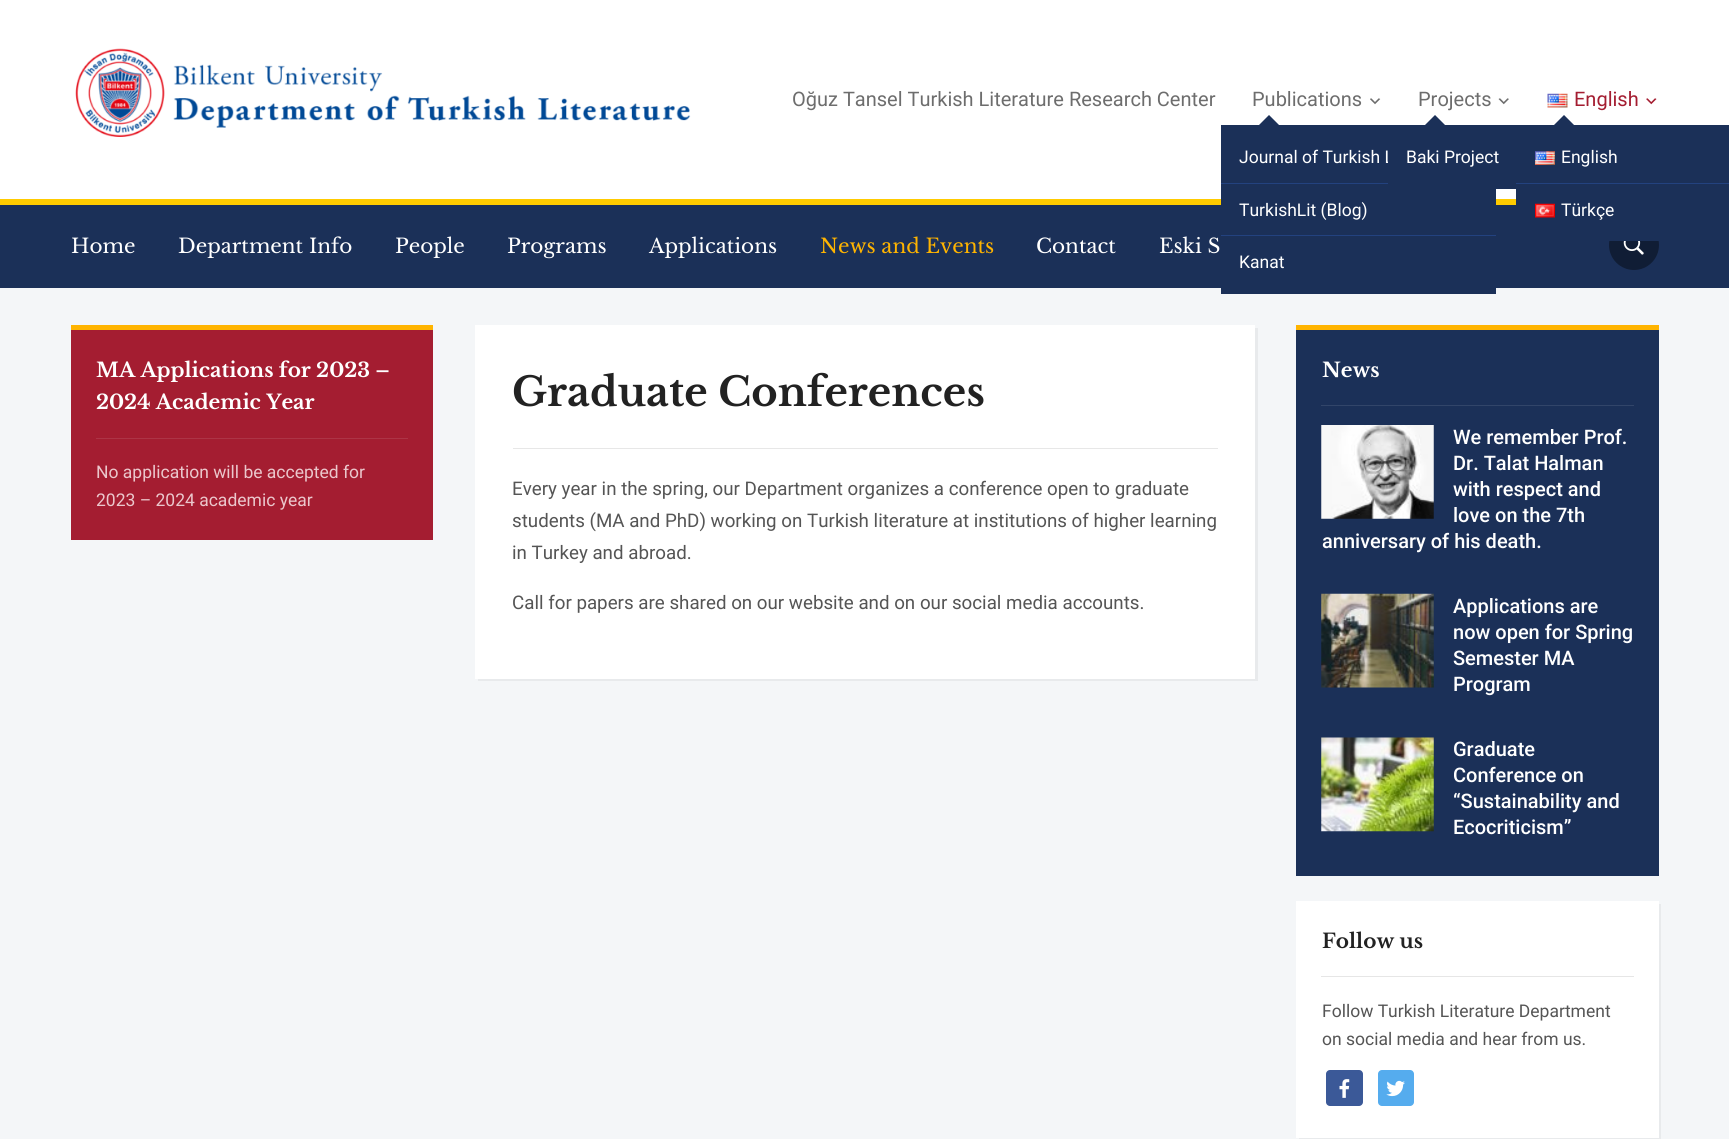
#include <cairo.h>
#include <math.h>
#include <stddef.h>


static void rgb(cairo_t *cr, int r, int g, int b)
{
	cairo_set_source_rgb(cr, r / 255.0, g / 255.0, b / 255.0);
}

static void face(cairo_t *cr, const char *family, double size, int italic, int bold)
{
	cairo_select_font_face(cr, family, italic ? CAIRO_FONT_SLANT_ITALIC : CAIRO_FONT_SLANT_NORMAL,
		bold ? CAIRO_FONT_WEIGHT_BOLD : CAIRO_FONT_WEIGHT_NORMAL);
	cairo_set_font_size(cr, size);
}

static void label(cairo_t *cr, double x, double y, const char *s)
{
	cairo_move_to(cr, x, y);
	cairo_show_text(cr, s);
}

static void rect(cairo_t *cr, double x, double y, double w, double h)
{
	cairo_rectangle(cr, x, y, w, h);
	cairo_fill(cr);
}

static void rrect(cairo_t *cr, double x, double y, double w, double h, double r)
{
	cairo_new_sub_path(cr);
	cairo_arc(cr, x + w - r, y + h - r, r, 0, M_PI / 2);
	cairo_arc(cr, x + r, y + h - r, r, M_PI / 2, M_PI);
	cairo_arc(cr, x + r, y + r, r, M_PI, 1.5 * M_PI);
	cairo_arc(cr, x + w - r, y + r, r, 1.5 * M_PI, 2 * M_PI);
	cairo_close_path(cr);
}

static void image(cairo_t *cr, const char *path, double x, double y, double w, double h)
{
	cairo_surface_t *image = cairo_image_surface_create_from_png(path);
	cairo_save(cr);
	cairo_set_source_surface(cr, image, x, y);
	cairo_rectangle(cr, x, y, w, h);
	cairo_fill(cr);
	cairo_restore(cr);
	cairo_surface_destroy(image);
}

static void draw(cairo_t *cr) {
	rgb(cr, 244, 246, 248);
	cairo_paint(cr);
	rgb(cr, 255, 255, 255);
	rect(cr, 0, 0, 1729, 199);
	image(cr, "image0.png", 75, 48, 616, 89);
	face(cr, "Roboto", 20, 0, 0);
	rgb(cr, 109, 109, 109);
	label(cr, 792, 106, "Oğuz Tansel Turkish Literature Research Center");
	label(cr, 1252, 106, "Publications");
	image(cr, "image1.png", 1370, 98, 11, 7);
	rgb(cr, 27, 48, 88);
	rect(cr, 0, 205, 1729, 83);
	rgb(cr, 255, 203, 0);
	rect(cr, 0, 199, 1516, 6);
	rgb(cr, 27, 48, 88);
	rect(cr, 1221, 125, 275, 169);
	cairo_new_path(cr);
	cairo_move_to(cr, 1279, 125);
	cairo_line_to(cr, 1259, 125);
	cairo_line_to(cr, 1269, 115);
	cairo_close_path(cr);
	cairo_fill(cr);
	rgb(cr, 35, 66, 127);
	rect(cr, 1221, 183, 167, 1);
	face(cr, "Roboto", 17.5, 0, 0);
	rgb(cr, 255, 255, 255);
	label(cr, 1239, 163, "Journal of Turkish L");
	rgb(cr, 35, 66, 127);
	rect(cr, 1221, 235, 275, 1);
	rgb(cr, 255, 255, 255);
	label(cr, 1239, 216, "TurkishLit (Blog)");
	label(cr, 1239, 268, "Kanat");
	face(cr, "Roboto", 20, 0, 0);
	rgb(cr, 109, 109, 109);
	label(cr, 1418, 106, "Projects");
	image(cr, "image2.png", 1498, 98, 11, 7);
	rgb(cr, 27, 48, 88);
	rect(cr, 1388, 125, 128, 64);
	cairo_new_path(cr);
	cairo_move_to(cr, 1445, 125);
	cairo_line_to(cr, 1425, 125);
	cairo_line_to(cr, 1435, 115);
	cairo_close_path(cr);
	cairo_fill(cr);
	face(cr, "Roboto", 17.5, 0, 0);
	rgb(cr, 255, 255, 255);
	label(cr, 1406, 163, "Baki Project");
	image(cr, "image3.png", 1547, 93, 21, 15);
	face(cr, "Roboto", 20, 0, 0);
	rgb(cr, 164, 29, 49);
	label(cr, 1574, 106, "English");
	image(cr, "image4.png", 1646, 98, 11, 7);
	rgb(cr, 16, 29, 53);
	cairo_arc(cr, 1634, 245, 25, 0, 2 * M_PI);
	cairo_fill(cr);
	rgb(cr, 27, 48, 88);
	rect(cr, 1516, 125, 213, 116);
	cairo_new_path(cr);
	cairo_move_to(cr, 1574, 125);
	cairo_line_to(cr, 1554, 125);
	cairo_line_to(cr, 1564, 115);
	cairo_close_path(cr);
	cairo_fill(cr);
	rgb(cr, 35, 66, 127);
	rect(cr, 1516, 183, 213, 1);
	image(cr, "image5.png", 1535, 151, 20, 14);
	face(cr, "Roboto", 17.5, 0, 0);
	rgb(cr, 255, 255, 255);
	label(cr, 1561, 163, "English");
	image(cr, "image6.png", 1535, 203, 20, 15);
	label(cr, 1561, 216, "Türkçe");
	face(cr, "Libre Baskerville", 20, 0, 0);
	label(cr, 71, 253, "Home");
	label(cr, 178, 253, "Department Info");
	label(cr, 395, 253, "People");
	label(cr, 507, 253, "Programs");
	label(cr, 649, 253, "Applications");
	rgb(cr, 255, 180, 0);
	label(cr, 820, 253, "News and Events");
	rgb(cr, 255, 255, 255);
	label(cr, 1036, 253, "Contact");
	label(cr, 1159, 253, "Eski S");
	image(cr, "image7.png", 1623, 241, 21, 14);
	rgb(cr, 164, 29, 49);
	rect(cr, 71, 330, 362, 210);
	rgb(cr, 255, 180, 0);
	rect(cr, 71, 325, 362, 5);
	rgb(cr, 173, 52, 70);
	rect(cr, 96, 438, 312, 1);
	face(cr, "Libre Baskerville", 20, 0, 1);
	rgb(cr, 255, 255, 255);
	label(cr, 96, 377, "MA Applications for 2023 –");
	label(cr, 96, 409, "2024 Academic Year");
	face(cr, "Roboto", 17.5, 0, 0);
	rgb(cr, 235, 199, 204);
	label(cr, 96, 478, "No application will be accepted for");
	label(cr, 96, 506, "2023 – 2024 academic year");
	rgb(cr, 232, 234, 236);
	cairo_new_path(cr);
	cairo_move_to(cr, 478, 679);
	cairo_line_to(cr, 478, 681);
	cairo_line_to(cr, 1258, 681);
	cairo_line_to(cr, 1258, 328);
	cairo_line_to(cr, 1255, 328);
	cairo_line_to(cr, 1255, 679);
	cairo_close_path(cr);
	cairo_fill(cr);
	rgb(cr, 255, 255, 255);
	rect(cr, 475, 325, 780, 354);
	face(cr, "Libre Baskerville", 40, 0, 1);
	rgb(cr, 34, 34, 34);
	label(cr, 512, 406, "Graduate Conferences");
	rgb(cr, 231, 231, 231);
	rect(cr, 513, 448, 705, 1);
	face(cr, "Roboto", 18.75, 0, 0);
	rgb(cr, 85, 85, 85);
	label(cr, 512, 495, "Every year in the spring, our Department organizes a conference open to graduate");
	label(cr, 512, 527, "students (MA and PhD) working on Turkish literature at institutions of higher learning");
	label(cr, 512, 559, "in Turkey and abroad.");
	label(cr, 512, 609, "Call for papers are shared on our website and on our social media accounts.");
	rgb(cr, 27, 48, 88);
	rect(cr, 1296, 330, 363, 546);
	rgb(cr, 255, 180, 0);
	rect(cr, 1296, 325, 363, 5);
	rgb(cr, 50, 69, 105);
	rect(cr, 1321, 405, 313, 1);
	face(cr, "Libre Baskerville", 20, 0, 1);
	rgb(cr, 255, 255, 255);
	label(cr, 1322, 377, "News");
	image(cr, "image8.png", 1321, 425, 113, 94);
	face(cr, "Roboto Medium", 20, 0, 0);
	label(cr, 1453, 444, "We remember Prof.");
	label(cr, 1453, 470, "Dr. Talat Halman");
	label(cr, 1453, 496, "with respect and");
	label(cr, 1453, 522, "love on the 7th");
	label(cr, 1322, 548, "anniversary of his death.");
	image(cr, "image9.png", 1321, 593, 113, 95);
	label(cr, 1453, 613, "Applications are");
	label(cr, 1453, 639, "now open for Spring");
	label(cr, 1453, 665, "Semester MA");
	label(cr, 1453, 691, "Program");
	image(cr, "image10.png", 1321, 737, 113, 95);
	label(cr, 1453, 756, "Graduate");
	label(cr, 1453, 782, "Conference on");
	label(cr, 1453, 808, "“Sustainability and");
	label(cr, 1453, 834, "Ecocriticism”");
	rgb(cr, 232, 234, 236);
	cairo_new_path(cr);
	cairo_move_to(cr, 1299, 1138);
	cairo_line_to(cr, 1299, 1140);
	cairo_line_to(cr, 1661, 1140);
	cairo_line_to(cr, 1661, 904);
	cairo_line_to(cr, 1659, 904);
	cairo_line_to(cr, 1659, 1138);
	cairo_close_path(cr);
	cairo_fill(cr);
	rgb(cr, 255, 255, 255);
	rect(cr, 1296, 901, 363, 237);
	rgb(cr, 230, 230, 230);
	rect(cr, 1321, 976, 313, 1);
	face(cr, "Libre Baskerville", 20, 0, 1);
	rgb(cr, 34, 34, 34);
	label(cr, 1322, 948, "Follow us");
	face(cr, "Roboto", 17.5, 0, 0);
	rgb(cr, 85, 85, 85);
	label(cr, 1322, 1017, "Follow Turkish Literature Department");
	label(cr, 1322, 1045, "on social media and hear from us.");
	rgb(cr, 59, 89, 152);
	rrect(cr, 1326, 1070, 37, 36, 4);
	cairo_fill(cr);
	image(cr, "image11.png", 1339, 1079, 11, 19);
	rgb(cr, 85, 172, 238);
	rrect(cr, 1378, 1070, 36, 36, 4);
	cairo_fill(cr);
	image(cr, "image12.png", 1386, 1080, 19, 17);
}

int main(void) {
	cairo_surface_t *surface = cairo_image_surface_create(CAIRO_FORMAT_RGB24, 1729, 1139);
	cairo_t *cr = cairo_create(surface);
	cairo_font_options_t *options = cairo_font_options_create();
	cairo_font_options_set_hint_metrics(options, CAIRO_HINT_METRICS_OFF);
	cairo_font_options_set_hint_style(options, CAIRO_HINT_STYLE_NONE);
	cairo_set_font_options(cr, options);
	cairo_set_miter_limit(cr, 4);
	draw(cr);
	cairo_surface_write_to_png(surface, "render.png");
	cairo_font_options_destroy(options);
	cairo_destroy(cr);
	cairo_surface_destroy(surface);
	return 0;
}
